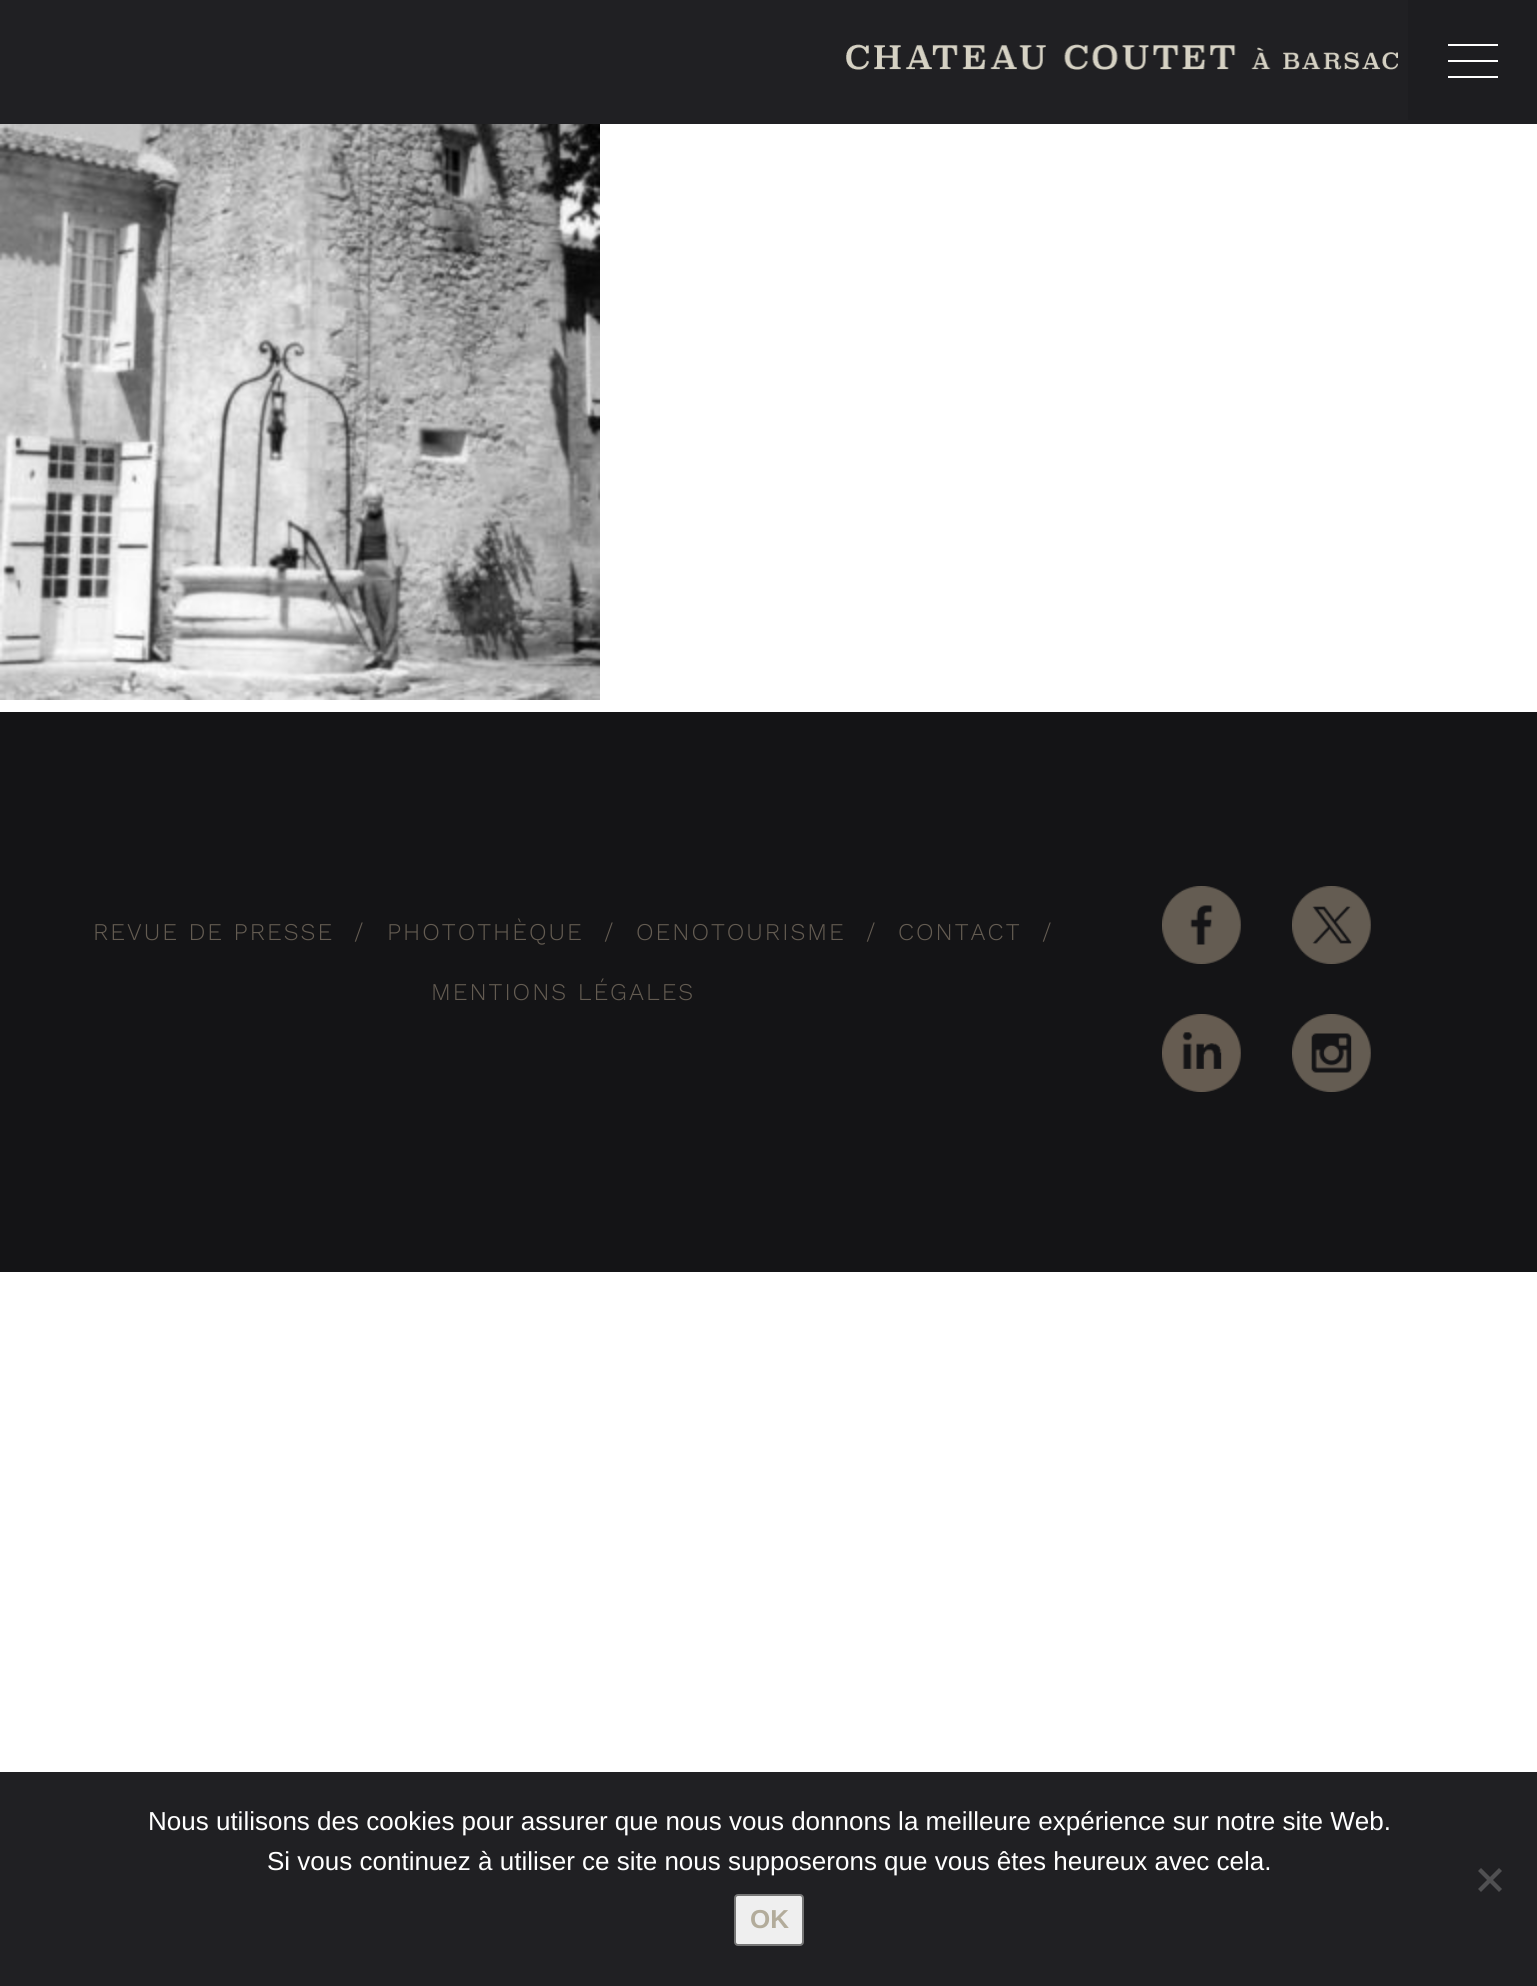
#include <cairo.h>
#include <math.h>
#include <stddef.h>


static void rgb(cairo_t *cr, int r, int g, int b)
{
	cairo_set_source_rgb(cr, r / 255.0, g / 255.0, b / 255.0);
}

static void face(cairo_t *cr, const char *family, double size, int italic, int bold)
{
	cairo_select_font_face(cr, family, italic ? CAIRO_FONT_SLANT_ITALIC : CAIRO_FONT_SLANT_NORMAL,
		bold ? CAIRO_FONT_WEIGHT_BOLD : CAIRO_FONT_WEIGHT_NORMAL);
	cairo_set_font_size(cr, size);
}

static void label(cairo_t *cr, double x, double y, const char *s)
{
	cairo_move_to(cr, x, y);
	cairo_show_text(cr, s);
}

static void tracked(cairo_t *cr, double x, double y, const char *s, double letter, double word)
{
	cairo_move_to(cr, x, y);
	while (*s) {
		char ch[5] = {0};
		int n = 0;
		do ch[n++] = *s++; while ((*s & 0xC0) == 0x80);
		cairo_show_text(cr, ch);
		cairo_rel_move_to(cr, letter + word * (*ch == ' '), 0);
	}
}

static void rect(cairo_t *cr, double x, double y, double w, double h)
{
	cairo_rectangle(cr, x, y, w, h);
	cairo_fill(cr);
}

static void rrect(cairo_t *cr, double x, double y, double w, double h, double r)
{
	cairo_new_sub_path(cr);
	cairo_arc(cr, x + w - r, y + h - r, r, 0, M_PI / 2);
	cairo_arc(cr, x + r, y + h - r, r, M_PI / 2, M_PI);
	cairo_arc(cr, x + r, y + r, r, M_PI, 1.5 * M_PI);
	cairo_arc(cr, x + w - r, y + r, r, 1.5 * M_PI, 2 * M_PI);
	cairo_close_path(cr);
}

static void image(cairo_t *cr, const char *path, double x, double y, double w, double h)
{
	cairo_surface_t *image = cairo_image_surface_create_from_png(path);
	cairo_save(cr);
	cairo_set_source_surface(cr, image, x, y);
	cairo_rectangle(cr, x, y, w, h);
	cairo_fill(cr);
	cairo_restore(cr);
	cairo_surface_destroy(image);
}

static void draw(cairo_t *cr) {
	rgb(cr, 255, 255, 255);
	cairo_paint(cr);
	rgb(cr, 32, 32, 35);
	rect(cr, 0, 0, 1408, 120);
	image(cr, "image0.png", 846, 44, 552, 26);
	rgb(cr, 29, 29, 32);
	rect(cr, 1408, 0, 129, 120);
	rgb(cr, 255, 255, 255);
	rect(cr, 1448, 60, 50, 2);
	rect(cr, 1448, 44, 50, 2);
	rect(cr, 1448, 76, 50, 2);
	rgb(cr, 32, 32, 35);
	rect(cr, 0, 120, 1537, 4);
	image(cr, "image1.png", 0, 124, 600, 576);
	rgb(cr, 20, 20, 22);
	rect(cr, 0, 712, 1537, 560);
	face(cr, "Work Sans Light", 24, 0, 0);
	rgb(cr, 100, 92, 82);
	tracked(cr, 93, 940, "REVUE DE PRESSE", 2, 0);
	tracked(cr, 354, 940, "/", 2, 0);
	tracked(cr, 387, 940, "PHOTOTHÈQUE", 2, 0);
	tracked(cr, 604, 940, "/", 2, 0);
	tracked(cr, 636, 940, "OENOTOURISME", 2, 0);
	tracked(cr, 866, 940, "/", 2, 0);
	tracked(cr, 898, 940, "CONTACT", 2, 0);
	tracked(cr, 1042, 940, "/", 2, 0);
	tracked(cr, 431, 1000, "MENTIONS LÉGALES", 2, 0);
	image(cr, "image2.png", 1162, 886, 79, 78);
	image(cr, "image3.png", 1292, 886, 79, 78);
	image(cr, "image4.png", 1162, 1014, 79, 78);
	image(cr, "image5.png", 1292, 1014, 79, 78);
	rgb(cr, 32, 32, 35);
	rect(cr, 0, 1772, 1537, 214);
	face(cr, "Liberation Sans", 26, 0, 0);
	rgb(cr, 255, 255, 255);
	label(cr, 148, 1830, "Nous utilisons des cookies pour assurer que nous vous donnons la meilleure expérience sur notre site Web.");
	label(cr, 267, 1870, "Si vous continuez à utiliser ce site nous supposerons que vous êtes heureux avec cela.");
	rgb(cr, 80, 80, 82);
	cairo_new_path(cr);
	cairo_move_to(cr, 1499, 1868);
	cairo_line_to(cr, 1502, 1871);
	cairo_line_to(cr, 1481, 1892);
	cairo_line_to(cr, 1478, 1889);
	cairo_close_path(cr);
	cairo_fill(cr);
	cairo_new_path(cr);
	cairo_move_to(cr, 1478, 1871);
	cairo_line_to(cr, 1481, 1868);
	cairo_line_to(cr, 1502, 1889);
	cairo_line_to(cr, 1499, 1892);
	cairo_close_path(cr);
	cairo_fill(cr);
	rgb(cr, 239, 239, 239);
	rrect(cr, 735, 1895, 68, 50, 3);
	cairo_fill_preserve(cr);
	rgb(cr, 118, 118, 118);
	cairo_stroke(cr);
	face(cr, "Liberation Sans", 26, 0, 1);
	rgb(cr, 179, 172, 155);
	label(cr, 750, 1928, "OK");
}

int main(void) {
	cairo_surface_t *surface = cairo_image_surface_create(CAIRO_FORMAT_RGB24, 1537, 1986);
	cairo_t *cr = cairo_create(surface);
	cairo_font_options_t *options = cairo_font_options_create();
	cairo_font_options_set_hint_metrics(options, CAIRO_HINT_METRICS_OFF);
	cairo_font_options_set_hint_style(options, CAIRO_HINT_STYLE_NONE);
	cairo_set_font_options(cr, options);
	cairo_set_miter_limit(cr, 4);
	draw(cr);
	cairo_surface_write_to_png(surface, "render.png");
	cairo_font_options_destroy(options);
	cairo_destroy(cr);
	cairo_surface_destroy(surface);
	return 0;
}
